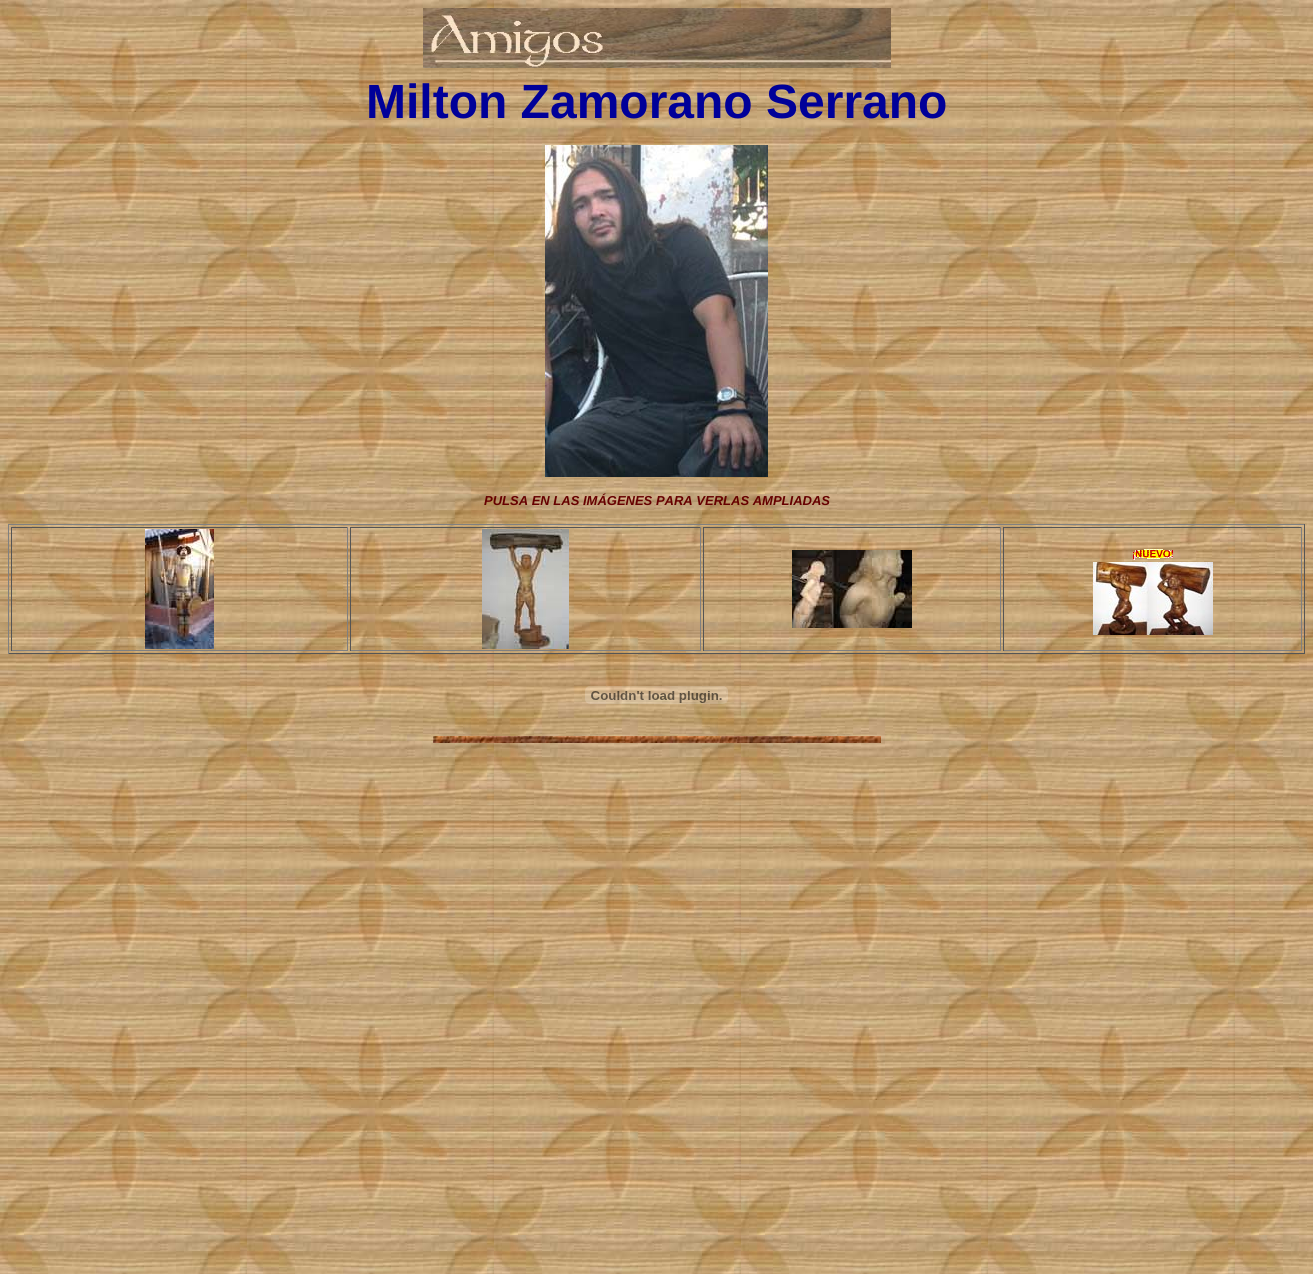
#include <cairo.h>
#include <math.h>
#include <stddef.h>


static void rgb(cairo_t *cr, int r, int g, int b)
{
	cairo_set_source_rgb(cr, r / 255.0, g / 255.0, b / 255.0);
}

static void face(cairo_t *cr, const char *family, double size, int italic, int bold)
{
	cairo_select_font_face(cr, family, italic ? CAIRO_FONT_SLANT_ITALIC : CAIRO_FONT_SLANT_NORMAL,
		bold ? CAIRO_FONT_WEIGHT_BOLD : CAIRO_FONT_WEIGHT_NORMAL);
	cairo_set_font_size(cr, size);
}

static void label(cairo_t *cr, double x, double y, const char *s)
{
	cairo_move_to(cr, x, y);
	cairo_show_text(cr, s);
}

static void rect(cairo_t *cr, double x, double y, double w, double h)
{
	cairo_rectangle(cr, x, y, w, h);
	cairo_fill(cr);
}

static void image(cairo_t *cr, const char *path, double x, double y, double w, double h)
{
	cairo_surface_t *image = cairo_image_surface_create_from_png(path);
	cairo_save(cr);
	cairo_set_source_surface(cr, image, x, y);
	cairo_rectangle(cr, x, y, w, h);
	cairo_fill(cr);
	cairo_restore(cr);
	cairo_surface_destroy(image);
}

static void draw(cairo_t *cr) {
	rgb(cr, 255, 255, 255);
	cairo_paint(cr);
	image(cr, "image0.png", 0, 0, 1313, 1274);
	image(cr, "image1.png", 423, 8, 468, 60);
	face(cr, "Liberation Sans", 48, 0, 1);
	rgb(cr, 0, 0, 153);
	label(cr, 366, 118, "Milton Zamorano Serrano");
	image(cr, "image2.png", 545, 145, 223, 332);
	face(cr, "Liberation Sans", 13, 1, 1);
	rgb(cr, 102, 0, 0);
	label(cr, 484, 505, "PULSA EN LAS IMÁGENES PARA VERLAS AMPLIADAS");
	rgb(cr, 128, 128, 128);
	rect(cr, 8, 524, 1297, 1);
	rgb(cr, 85, 85, 85);
	rect(cr, 1304, 524, 1, 130);
	rect(cr, 8, 653, 1297, 1);
	rgb(cr, 128, 128, 128);
	rect(cr, 8, 524, 1, 130);
	rgb(cr, 85, 85, 85);
	rect(cr, 11, 527, 337, 1);
	rgb(cr, 128, 128, 128);
	rect(cr, 347, 527, 1, 124);
	rect(cr, 11, 650, 337, 1);
	rgb(cr, 85, 85, 85);
	rect(cr, 11, 527, 1, 124);
	image(cr, "image3.png", 145, 529, 69, 120);
	rect(cr, 350, 527, 351, 1);
	rgb(cr, 128, 128, 128);
	rect(cr, 700, 527, 1, 124);
	rect(cr, 350, 650, 351, 1);
	rgb(cr, 85, 85, 85);
	rect(cr, 350, 527, 1, 124);
	image(cr, "image4.png", 482, 529, 87, 120);
	rect(cr, 703, 527, 298, 1);
	rgb(cr, 128, 128, 128);
	rect(cr, 1000, 527, 1, 124);
	rect(cr, 703, 650, 298, 1);
	rgb(cr, 85, 85, 85);
	rect(cr, 703, 527, 1, 124);
	image(cr, "image5.png", 792, 550, 120, 78);
	rect(cr, 1003, 527, 299, 1);
	rgb(cr, 128, 128, 128);
	rect(cr, 1301, 527, 1, 124);
	rect(cr, 1003, 650, 299, 1);
	rgb(cr, 85, 85, 85);
	rect(cr, 1003, 527, 1, 124);
	image(cr, "image6.png", 1133, 549, 40, 11);
	image(cr, "image7.png", 1093, 562, 120, 73);
	image(cr, "image8.png", 585, 686, 143, 18);
	image(cr, "image9.png", 433, 736, 448, 7);
}

int main(void) {
	cairo_surface_t *surface = cairo_image_surface_create(CAIRO_FORMAT_RGB24, 1313, 1274);
	cairo_t *cr = cairo_create(surface);
	cairo_font_options_t *options = cairo_font_options_create();
	cairo_font_options_set_hint_metrics(options, CAIRO_HINT_METRICS_OFF);
	cairo_font_options_set_hint_style(options, CAIRO_HINT_STYLE_NONE);
	cairo_set_font_options(cr, options);
	cairo_set_miter_limit(cr, 4);
	draw(cr);
	cairo_surface_write_to_png(surface, "render.png");
	cairo_font_options_destroy(options);
	cairo_destroy(cr);
	cairo_surface_destroy(surface);
	return 0;
}
